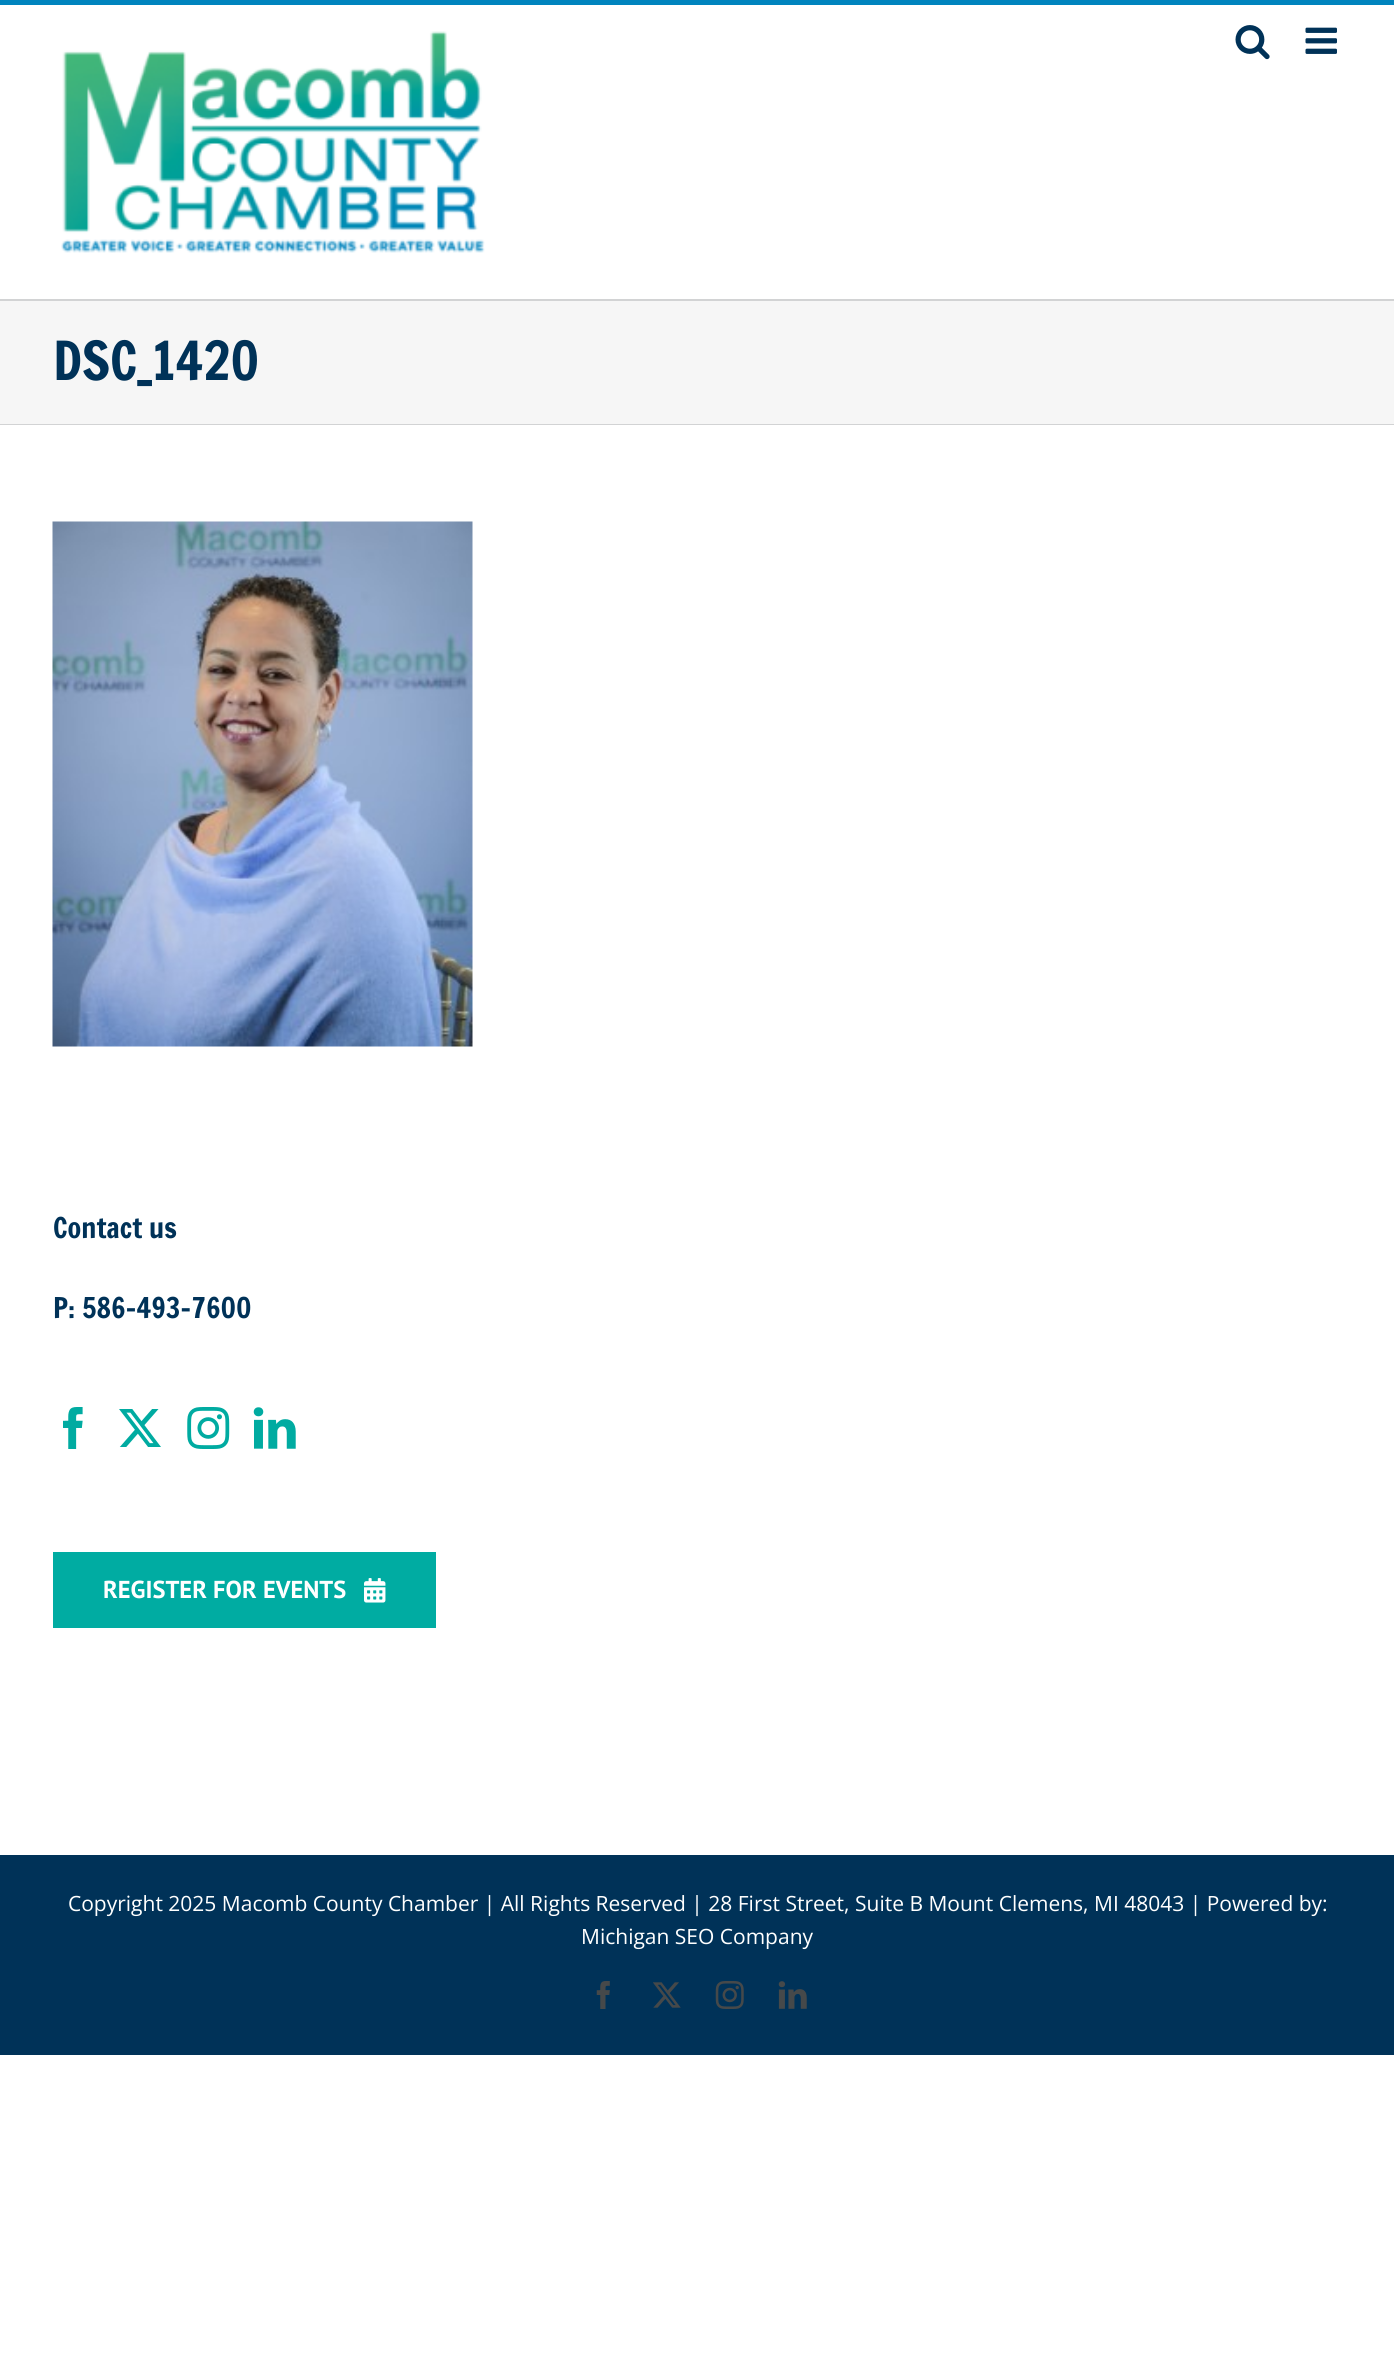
#include <cairo.h>
#include <math.h>
#include <stddef.h>


static void rgb(cairo_t *cr, int r, int g, int b)
{
	cairo_set_source_rgb(cr, r / 255.0, g / 255.0, b / 255.0);
}

static void face(cairo_t *cr, const char *family, double size, int italic, int bold)
{
	cairo_select_font_face(cr, family, italic ? CAIRO_FONT_SLANT_ITALIC : CAIRO_FONT_SLANT_NORMAL,
		bold ? CAIRO_FONT_WEIGHT_BOLD : CAIRO_FONT_WEIGHT_NORMAL);
	cairo_set_font_size(cr, size);
}

static void label(cairo_t *cr, double x, double y, const char *s)
{
	cairo_move_to(cr, x, y);
	cairo_show_text(cr, s);
}

static void rect(cairo_t *cr, double x, double y, double w, double h)
{
	cairo_rectangle(cr, x, y, w, h);
	cairo_fill(cr);
}

static void image(cairo_t *cr, const char *path, double x, double y, double w, double h)
{
	cairo_surface_t *image = cairo_image_surface_create_from_png(path);
	cairo_save(cr);
	cairo_set_source_surface(cr, image, x, y);
	cairo_rectangle(cr, x, y, w, h);
	cairo_fill(cr);
	cairo_restore(cr);
	cairo_surface_destroy(image);
}

static void draw(cairo_t *cr) {
	rgb(cr, 255, 255, 255);
	cairo_paint(cr);
	rgb(cr, 0, 132, 190);
	rect(cr, 0, 0, 1394, 5);
	image(cr, "image0.png", 61, 31, 424, 222);
	image(cr, "image1.png", 1235, 25, 35, 35);
	image(cr, "image2.png", 1305, 27, 32, 27);
	rgb(cr, 246, 246, 246);
	rect(cr, 0, 301, 1394, 123);
	rgb(cr, 210, 211, 212);
	rect(cr, 0, 299, 1394, 2);
	rect(cr, 0, 424, 1394, 1);
	face(cr, "Francois One", 52.5, 0, 0);
	rgb(cr, 0, 50, 88);
	label(cr, 53, 380, "DSC_1420");
	image(cr, "image3.png", 52, 521, 421, 526);
	face(cr, "Francois One", 28, 0, 0);
	label(cr, 53, 1238, "Contact us");
	label(cr, 53, 1318, "P: 586-493-7600");
	image(cr, "image4.png", 63, 1407, 20, 42);
	image(cr, "image5.png", 119, 1409, 42, 38);
	image(cr, "image6.png", 187, 1407, 43, 42);
	image(cr, "image7.png", 253, 1407, 43, 42);
	rgb(cr, 0, 172, 162);
	rect(cr, 53, 1552, 383, 76);
	face(cr, "PT Sans", 24.5, 0, 1);
	rgb(cr, 255, 255, 255);
	label(cr, 103, 1598, "REGISTER FOR EVENTS");
	image(cr, "image8.png", 364, 1578, 22, 25);
	rgb(cr, 0, 50, 88);
	rect(cr, 0, 1855, 1394, 200);
	face(cr, "Open Sans", 21, 0, 0);
	rgb(cr, 255, 255, 255);
	label(cr, 68, 1911, "Copyright 2025 Macomb County Chamber | All Rights Reserved | 28 First Street, Suite B Mount Clemens, MI 48043 | Powered by:");
	label(cr, 581, 1944, "Michigan SEO Company");
	image(cr, "image9.png", 596, 1981, 14, 28);
	image(cr, "image10.png", 653, 1982, 28, 26);
	image(cr, "image11.png", 715, 1981, 29, 28);
	image(cr, "image12.png", 778, 1981, 29, 28);
}

int main(void) {
	cairo_surface_t *surface = cairo_image_surface_create(CAIRO_FORMAT_RGB24, 1394, 2368);
	cairo_t *cr = cairo_create(surface);
	cairo_font_options_t *options = cairo_font_options_create();
	cairo_font_options_set_hint_metrics(options, CAIRO_HINT_METRICS_OFF);
	cairo_font_options_set_hint_style(options, CAIRO_HINT_STYLE_NONE);
	cairo_set_font_options(cr, options);
	cairo_set_miter_limit(cr, 4);
	draw(cr);
	cairo_surface_write_to_png(surface, "render.png");
	cairo_font_options_destroy(options);
	cairo_destroy(cr);
	cairo_surface_destroy(surface);
	return 0;
}
